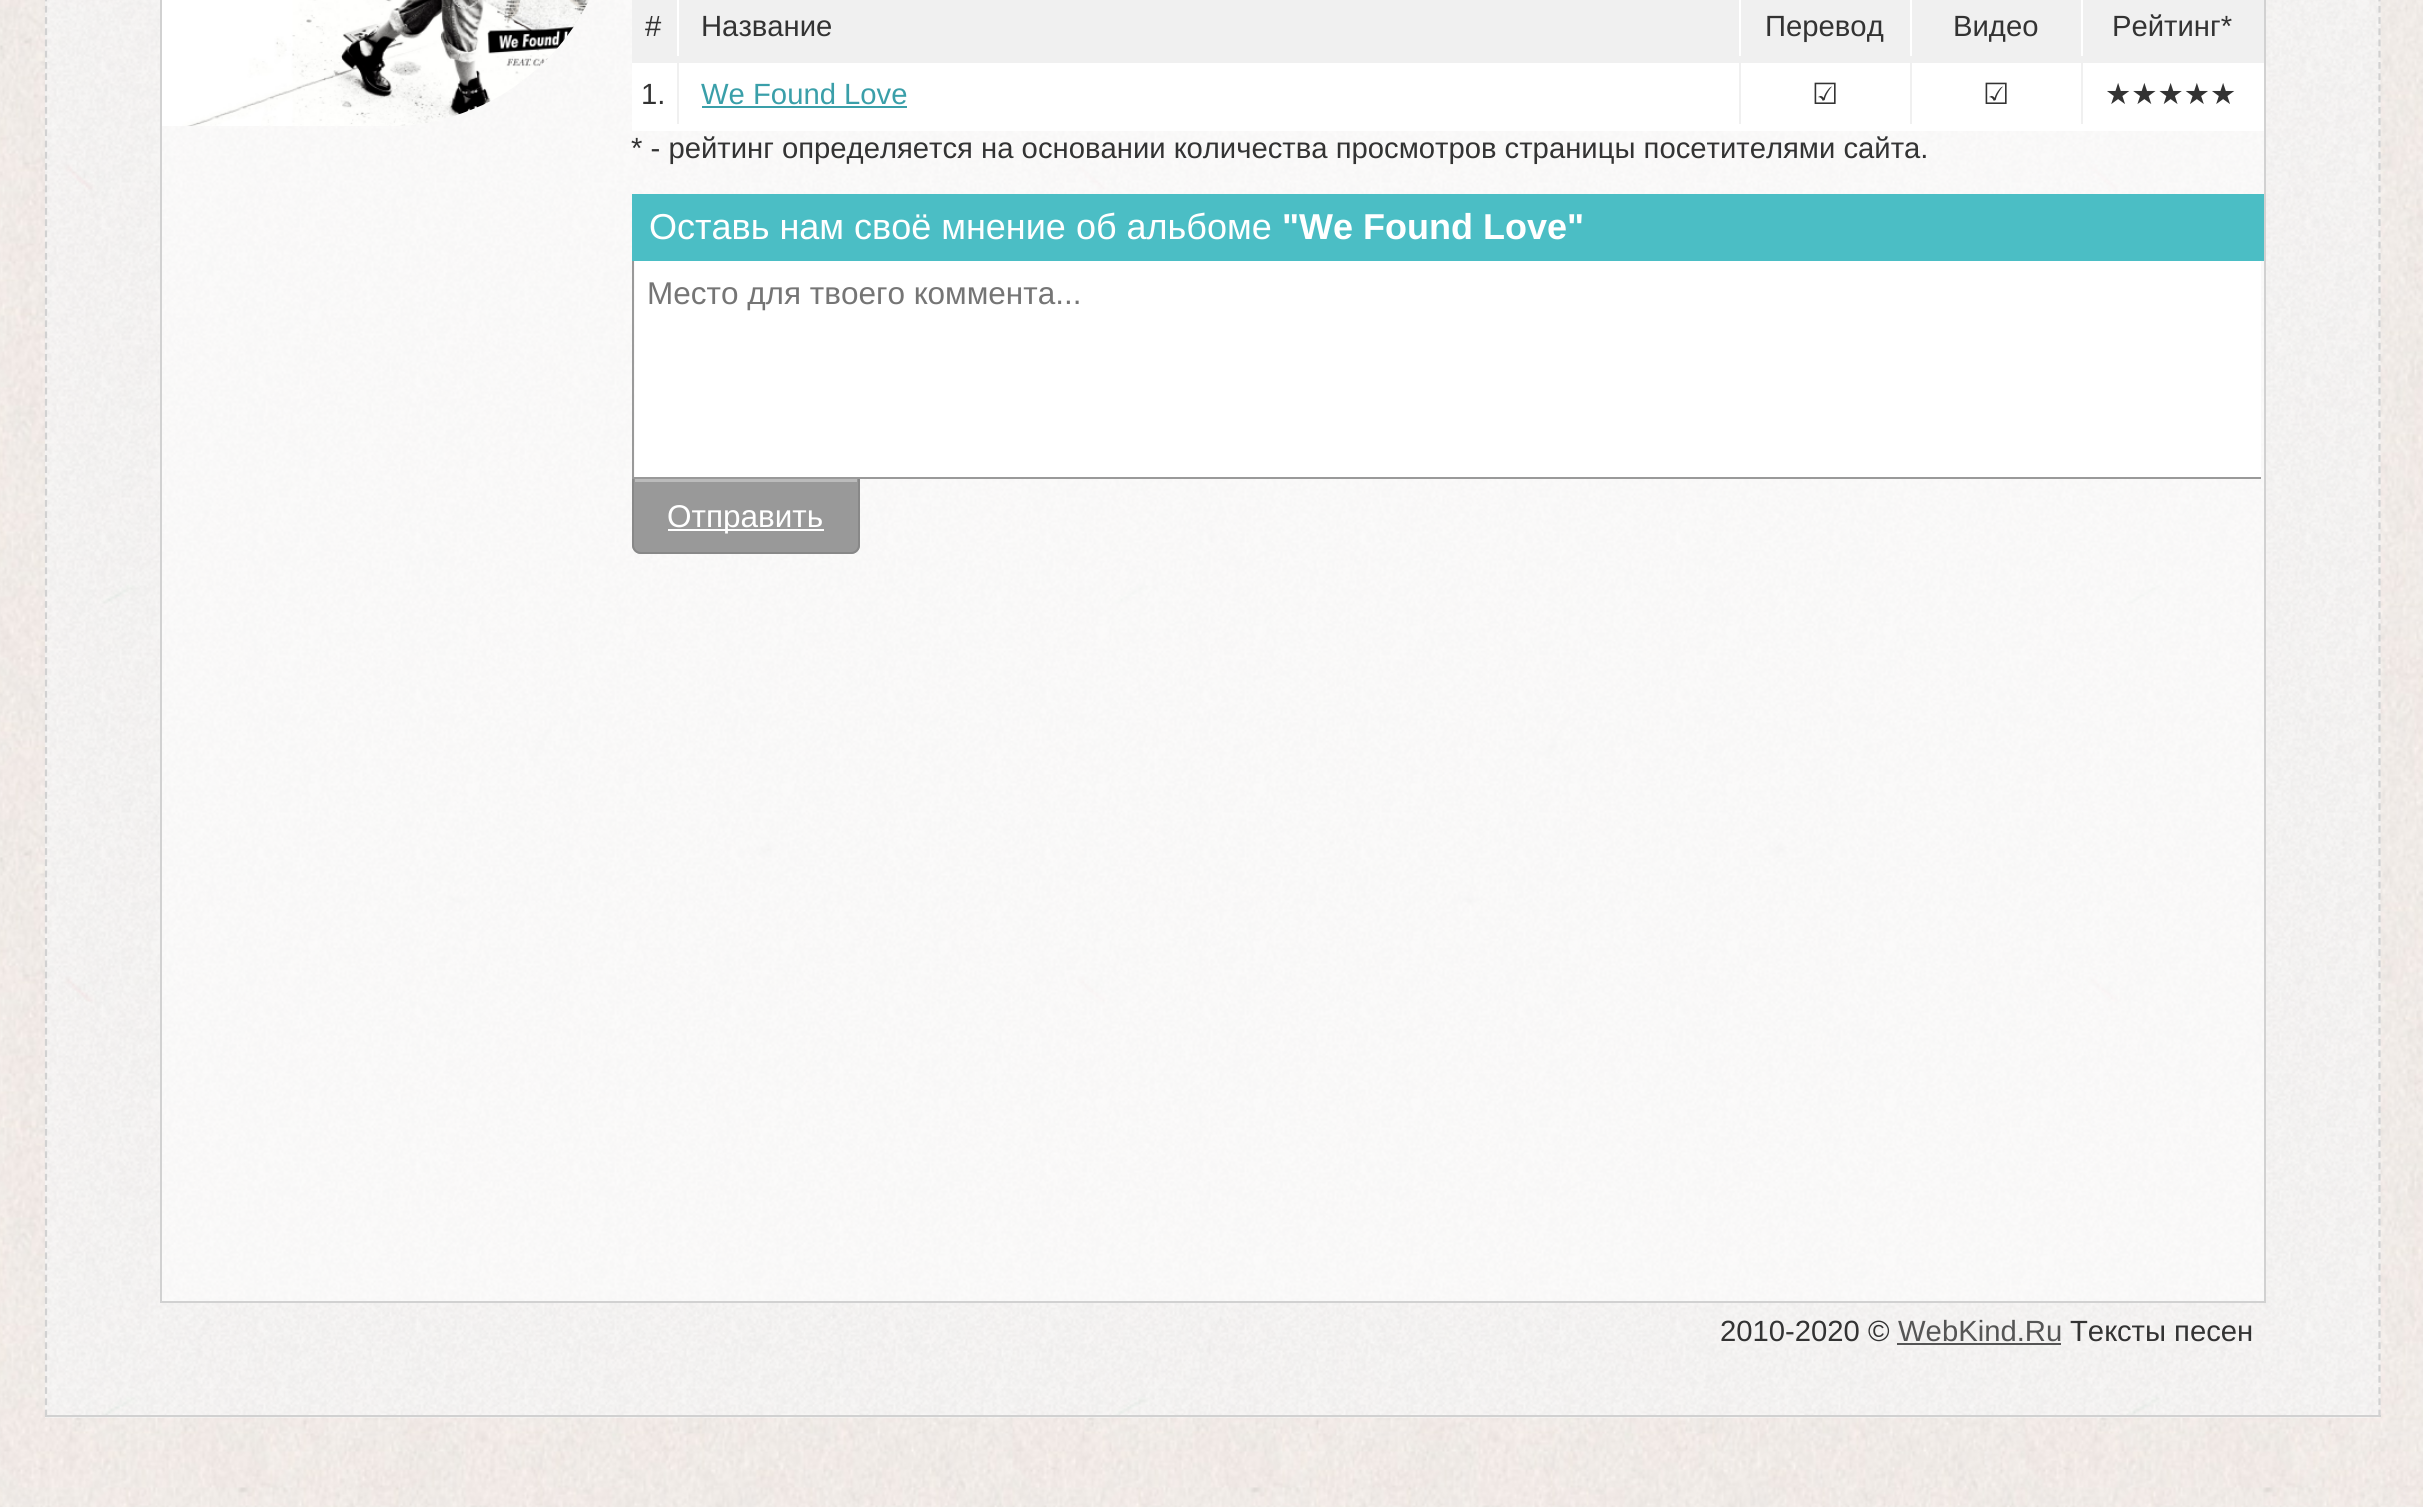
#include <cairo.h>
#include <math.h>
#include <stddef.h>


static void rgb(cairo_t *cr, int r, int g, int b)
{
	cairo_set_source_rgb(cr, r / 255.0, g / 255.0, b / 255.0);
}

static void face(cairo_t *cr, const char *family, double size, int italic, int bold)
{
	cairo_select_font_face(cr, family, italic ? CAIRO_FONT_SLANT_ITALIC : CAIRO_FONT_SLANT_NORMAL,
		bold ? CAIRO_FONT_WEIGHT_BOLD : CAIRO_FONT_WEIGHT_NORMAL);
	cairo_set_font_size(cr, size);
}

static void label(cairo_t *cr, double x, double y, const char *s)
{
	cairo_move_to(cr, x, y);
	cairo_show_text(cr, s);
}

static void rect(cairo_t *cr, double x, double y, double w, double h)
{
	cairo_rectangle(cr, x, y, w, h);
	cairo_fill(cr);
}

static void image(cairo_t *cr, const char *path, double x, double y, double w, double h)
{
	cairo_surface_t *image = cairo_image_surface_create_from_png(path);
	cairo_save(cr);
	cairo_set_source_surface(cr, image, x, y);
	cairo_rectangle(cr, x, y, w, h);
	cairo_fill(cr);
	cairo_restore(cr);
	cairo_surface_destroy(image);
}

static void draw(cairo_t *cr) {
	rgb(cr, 255, 255, 255);
	cairo_paint(cr);
	image(cr, "image0.png", 0, 0, 2423, 1507);
	image(cr, "image1.png", 45, 0, 2336, 1418);
	cairo_new_path(cr);
	cairo_move_to(cr, 2379.5, -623);
	cairo_line_to(cr, 2379.5, 1417.5);
	rgb(cr, 209, 209, 209);
	cairo_set_line_width(cr, 2.2);
	cairo_set_dash(cr, (double[]){6.75, 4.48}, 2, 0);
	cairo_stroke(cr);
	rect(cr, 45, 1415, 2336, 2);
	cairo_new_path(cr);
	cairo_move_to(cr, 46, -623);
	cairo_line_to(cr, 46, 1417.5);
	cairo_stroke(cr);
	cairo_set_source_rgba(cr, 1, 1, 1, 0.53);
	cairo_rectangle(cr, 161, -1, 2104, 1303);
	cairo_fill_preserve(cr);
	rgb(cr, 209, 209, 209);
	cairo_set_line_width(cr, 2);
	cairo_set_dash(cr, NULL, 0, 0);
	cairo_stroke(cr);
	image(cr, "image2.png", 162, 0, 427, 126);
	rgb(cr, 240, 240, 240);
	rect(cr, 632, 0, 1632, 63);
	rgb(cr, 255, 255, 255);
	rect(cr, 677, 0, 2, 56);
	face(cr, "Liberation Sans", 29.25, 0, 0);
	rgb(cr, 51, 51, 51);
	label(cr, 645, 36, "#");
	label(cr, 701, 36, "Название");
	rgb(cr, 255, 255, 255);
	rect(cr, 1910, 0, 2, 56);
	rect(cr, 1739, 0, 2, 56);
	rgb(cr, 51, 51, 51);
	label(cr, 1765, 36, "Перевод");
	rgb(cr, 255, 255, 255);
	rect(cr, 2081, 0, 2, 56);
	rgb(cr, 51, 51, 51);
	label(cr, 1953, 36, "Видео");
	label(cr, 2112, 36, "Рейтинг*");
	rgb(cr, 255, 255, 255);
	rect(cr, 632, 63, 1632, 68);
	rgb(cr, 240, 240, 240);
	rect(cr, 677, 63, 2, 61);
	rgb(cr, 51, 51, 51);
	label(cr, 641, 104, "1.");
	rgb(cr, 58, 159, 169);
	label(cr, 701, 104, "We Found Love");
	rect(cr, 702, 106, 205, 2);
	rgb(cr, 240, 240, 240);
	rect(cr, 1910, 63, 2, 61);
	rect(cr, 1739, 63, 2, 61);
	face(cr, "DejaVu Sans", 29.25, 0, 0);
	rgb(cr, 51, 51, 51);
	label(cr, 1812, 104, "☑");
	rgb(cr, 240, 240, 240);
	rect(cr, 2081, 63, 2, 61);
	rgb(cr, 51, 51, 51);
	label(cr, 1983, 104, "☑");
	label(cr, 2105, 104, "★★★★★");
	face(cr, "Liberation Sans", 29.25, 0, 0);
	label(cr, 631, 158, "* - рейтинг определяется на основании количества просмотров страницы посетителями сайта.");
	rgb(cr, 75, 190, 197);
	rect(cr, 632, 194, 1632, 67);
	face(cr, "Liberation Sans", 36, 0, 0);
	rgb(cr, 255, 255, 255);
	label(cr, 649, 239, "Оставь нам своё мнение об альбоме");
	face(cr, "Liberation Sans", 36, 0, 1);
	label(cr, 1282, 239, "\"We Found Love\"");
	rect(cr, 635, 261, 1626, 216);
	rgb(cr, 153, 153, 153);
	cairo_new_path(cr);
	cairo_move_to(cr, 632, 477);
	cairo_line_to(cr, 860, 477);
	cairo_line_to(cr, 860, 545);
	cairo_curve_to(cr, 860, 550, 856, 554, 851, 554);
	cairo_line_to(cr, 641, 554);
	cairo_curve_to(cr, 636, 554, 632, 550, 632, 545);
	cairo_close_path(cr);
	cairo_fill(cr);
	rgb(cr, 187, 187, 187);
	rect(cr, 635, 479, 222, 3);
	cairo_new_path(cr);
	cairo_move_to(cr, 633, 478);
	cairo_line_to(cr, 859, 478);
	cairo_line_to(cr, 859, 545);
	cairo_curve_to(cr, 859, 549.5, 855.5, 553, 851, 553);
	cairo_line_to(cr, 641, 553);
	cairo_curve_to(cr, 636.5, 553, 633, 549.5, 633, 545);
	cairo_close_path(cr);
	rgb(cr, 136, 136, 136);
	cairo_stroke(cr);
	rgb(cr, 153, 153, 153);
	rect(cr, 632, 477, 1629, 2);
	rect(cr, 632, 261, 2, 218);
	face(cr, "Liberation Sans", 31.5, 0, 0);
	rgb(cr, 117, 117, 117);
	label(cr, 647, 304, "Место для твоего коммента...");
	rgb(cr, 255, 255, 255);
	rect(cr, 668, 529, 156, 2);
	label(cr, 667, 527, "Отправить");
	face(cr, "Liberation Sans", 29.25, 0, 0);
	rgb(cr, 51, 51, 51);
	label(cr, 1720, 1341, "2010-2020 ©");
	rgb(cr, 85, 85, 85);
	label(cr, 1898, 1341, "WebKind.Ru");
	rect(cr, 1897, 1343, 164, 2);
	rgb(cr, 51, 51, 51);
	label(cr, 2070, 1341, "Тексты песен");
}

int main(void) {
	cairo_surface_t *surface = cairo_image_surface_create(CAIRO_FORMAT_RGB24, 2423, 1507);
	cairo_t *cr = cairo_create(surface);
	cairo_font_options_t *options = cairo_font_options_create();
	cairo_font_options_set_hint_metrics(options, CAIRO_HINT_METRICS_OFF);
	cairo_font_options_set_hint_style(options, CAIRO_HINT_STYLE_NONE);
	cairo_set_font_options(cr, options);
	cairo_set_miter_limit(cr, 4);
	draw(cr);
	cairo_surface_write_to_png(surface, "render.png");
	cairo_font_options_destroy(options);
	cairo_destroy(cr);
	cairo_surface_destroy(surface);
	return 0;
}
